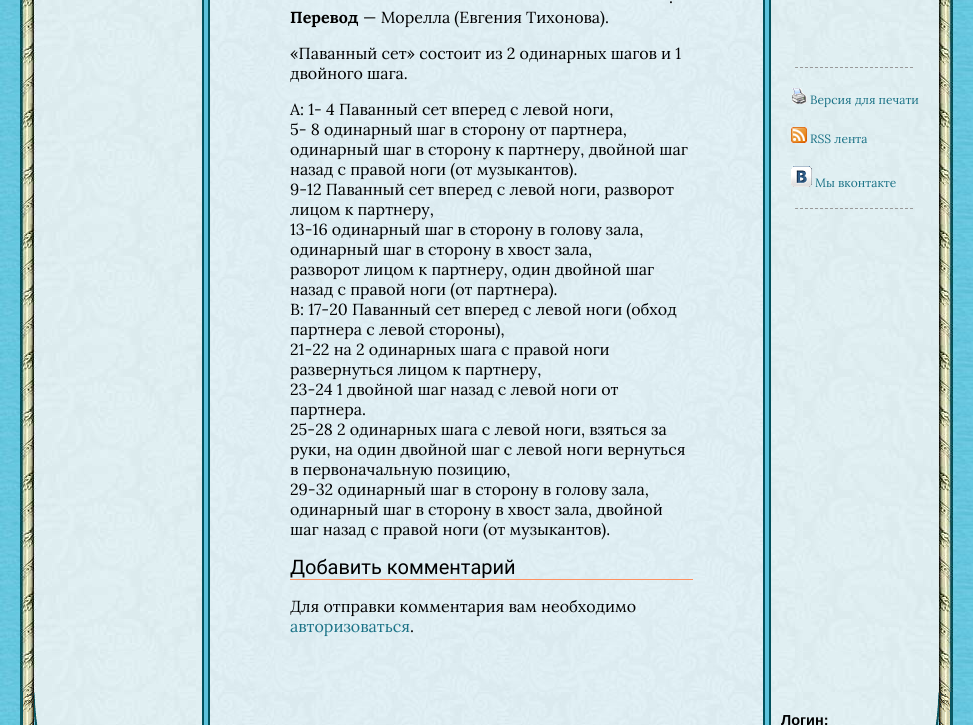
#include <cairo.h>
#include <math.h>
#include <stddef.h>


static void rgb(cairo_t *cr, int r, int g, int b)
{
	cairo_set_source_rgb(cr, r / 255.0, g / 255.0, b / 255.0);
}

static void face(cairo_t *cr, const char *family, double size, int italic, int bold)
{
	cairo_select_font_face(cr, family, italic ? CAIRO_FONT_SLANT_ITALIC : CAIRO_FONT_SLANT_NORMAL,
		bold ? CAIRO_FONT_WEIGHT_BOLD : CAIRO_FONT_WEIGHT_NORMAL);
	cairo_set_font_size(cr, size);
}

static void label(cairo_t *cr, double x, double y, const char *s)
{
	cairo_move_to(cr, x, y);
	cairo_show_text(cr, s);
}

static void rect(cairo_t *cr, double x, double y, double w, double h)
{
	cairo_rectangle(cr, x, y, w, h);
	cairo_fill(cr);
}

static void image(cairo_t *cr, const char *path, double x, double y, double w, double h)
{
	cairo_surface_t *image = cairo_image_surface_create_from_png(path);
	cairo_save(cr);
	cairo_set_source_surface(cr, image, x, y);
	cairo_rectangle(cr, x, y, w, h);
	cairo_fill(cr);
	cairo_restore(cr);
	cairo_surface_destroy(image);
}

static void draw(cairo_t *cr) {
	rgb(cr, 255, 255, 255);
	cairo_paint(cr);
	image(cr, "image0.png", 0, 0, 973, 725);
	image(cr, "image1.png", 20, 0, 182, 692);
	image(cr, "image2.png", 202, 0, 8, 692);
	image(cr, "image3.png", 210, 0, 553, 692);
	face(cr, "Lora", 16, 0, 0);
	rgb(cr, 0, 0, 0);
	label(cr, 669, 3, ".");
	face(cr, "Lora", 16, 0, 1);
	label(cr, 290, 23, "Перевод");
	face(cr, "Lora", 16, 0, 0);
	label(cr, 363, 23, "— Морелла (Евгения Тихонова).");
	label(cr, 290, 59, "«Паванный сет» состоит из 2 одинарных шагов и 1");
	label(cr, 290, 79, "двойного шага.");
	label(cr, 290, 115, "A: 1- 4 Паванный сет вперед с левой ноги,");
	label(cr, 290, 135, "5- 8 одинарный шаг в сторону от партнера,");
	label(cr, 290, 155, "одинарный шаг в сторону к партнеру, двойной шаг");
	label(cr, 290, 175, "назад с правой ноги (от музыкантов).");
	label(cr, 290, 195, "9-12 Паванный сет вперед с левой ноги, разворот");
	label(cr, 290, 215, "лицом к партнеру,");
	label(cr, 290, 235, "13-16 одинарный шаг в сторону в голову зала,");
	label(cr, 290, 255, "одинарный шаг в сторону в хвост зала,");
	label(cr, 290, 275, "разворот лицом к партнеру, один двойной шаг");
	label(cr, 290, 295, "назад с правой ноги (от партнера).");
	label(cr, 290, 315, "B: 17-20 Паванный сет вперед с левой ноги (обход");
	label(cr, 290, 335, "партнера с левой стороны),");
	label(cr, 290, 355, "21-22 на 2 одинарных шага с правой ноги");
	label(cr, 290, 375, "развернуться лицом к партнеру,");
	label(cr, 290, 395, "23-24 1 двойной шаг назад с левой ноги от");
	label(cr, 290, 415, "партнера.");
	label(cr, 290, 435, "25-28 2 одинарных шага с левой ноги, взяться за");
	label(cr, 290, 455, "руки, на один двойной шаг с левой ноги вернуться");
	label(cr, 290, 475, "в первоначальную позицию,");
	label(cr, 290, 495, "29-32 одинарный шаг в сторону в голову зала,");
	label(cr, 290, 515, "одинарный шаг в сторону в хвост зала, двойной");
	label(cr, 290, 535, "шаг назад с правой ноги (от музыкантов).");
	rgb(cr, 255, 144, 96);
	rect(cr, 290, 579, 403, 1);
	face(cr, "Roboto", 20, 0, 0);
	rgb(cr, 0, 0, 0);
	label(cr, 290, 574, "Добавить комментарий");
	face(cr, "Lora", 16, 0, 0);
	label(cr, 290, 612, "Для отправки комментария вам необходимо");
	rgb(cr, 26, 114, 134);
	label(cr, 290, 632, "авторизоваться");
	rgb(cr, 0, 0, 0);
	label(cr, 410, 632, ".");
	image(cr, "image2.png", 763, 0, 8, 692);
	image(cr, "image4.png", 771, 0, 182, 692);
	cairo_new_path(cr);
	cairo_move_to(cr, 795, 67.5);
	cairo_line_to(cr, 913, 67.5);
	rgb(cr, 153, 153, 153);
	cairo_set_line_width(cr, 1);
	cairo_set_dash(cr, (double[]){3, 2}, 2, 0);
	cairo_stroke(cr);
	rgb(cr, 159, 159, 159);
	rect(cr, 795, 67, 1, 1);
	image(cr, "image5.png", 792, 88, 15, 16);
	face(cr, "Lora", 12, 0, 0);
	rgb(cr, 26, 114, 134);
	label(cr, 810, 104, "Версия для печати");
	image(cr, "image6.png", 791, 127, 16, 16);
	label(cr, 810, 143, "RSS лента");
	image(cr, "image7.png", 791, 166, 21, 21);
	label(cr, 815, 187, "Мы вконтакте");
	cairo_new_path(cr);
	cairo_move_to(cr, 795, 208.5);
	cairo_line_to(cr, 913, 208.5);
	rgb(cr, 153, 153, 153);
	cairo_stroke(cr);
	rgb(cr, 159, 159, 159);
	rect(cr, 795, 208, 1, 1);
	image(cr, "image8.png", 26, 692, 176, 33);
	image(cr, "image9.png", 20, 692, 18, 33);
	image(cr, "image10.png", 202, 692, 8, 33);
	image(cr, "image11.png", 210, 692, 553, 33);
	image(cr, "image10.png", 763, 692, 8, 33);
	image(cr, "image12.png", 771, 692, 176, 33);
	face(cr, "Liberation Sans", 14.5, 0, 1);
	rgb(cr, 0, 0, 0);
	label(cr, 781, 725, "Логин:");
	image(cr, "image13.png", 935, 692, 18, 33);
}

int main(void) {
	cairo_surface_t *surface = cairo_image_surface_create(CAIRO_FORMAT_RGB24, 973, 725);
	cairo_t *cr = cairo_create(surface);
	cairo_font_options_t *options = cairo_font_options_create();
	cairo_font_options_set_hint_metrics(options, CAIRO_HINT_METRICS_OFF);
	cairo_font_options_set_hint_style(options, CAIRO_HINT_STYLE_NONE);
	cairo_set_font_options(cr, options);
	cairo_set_miter_limit(cr, 4);
	draw(cr);
	cairo_surface_write_to_png(surface, "render.png");
	cairo_font_options_destroy(options);
	cairo_destroy(cr);
	cairo_surface_destroy(surface);
	return 0;
}
